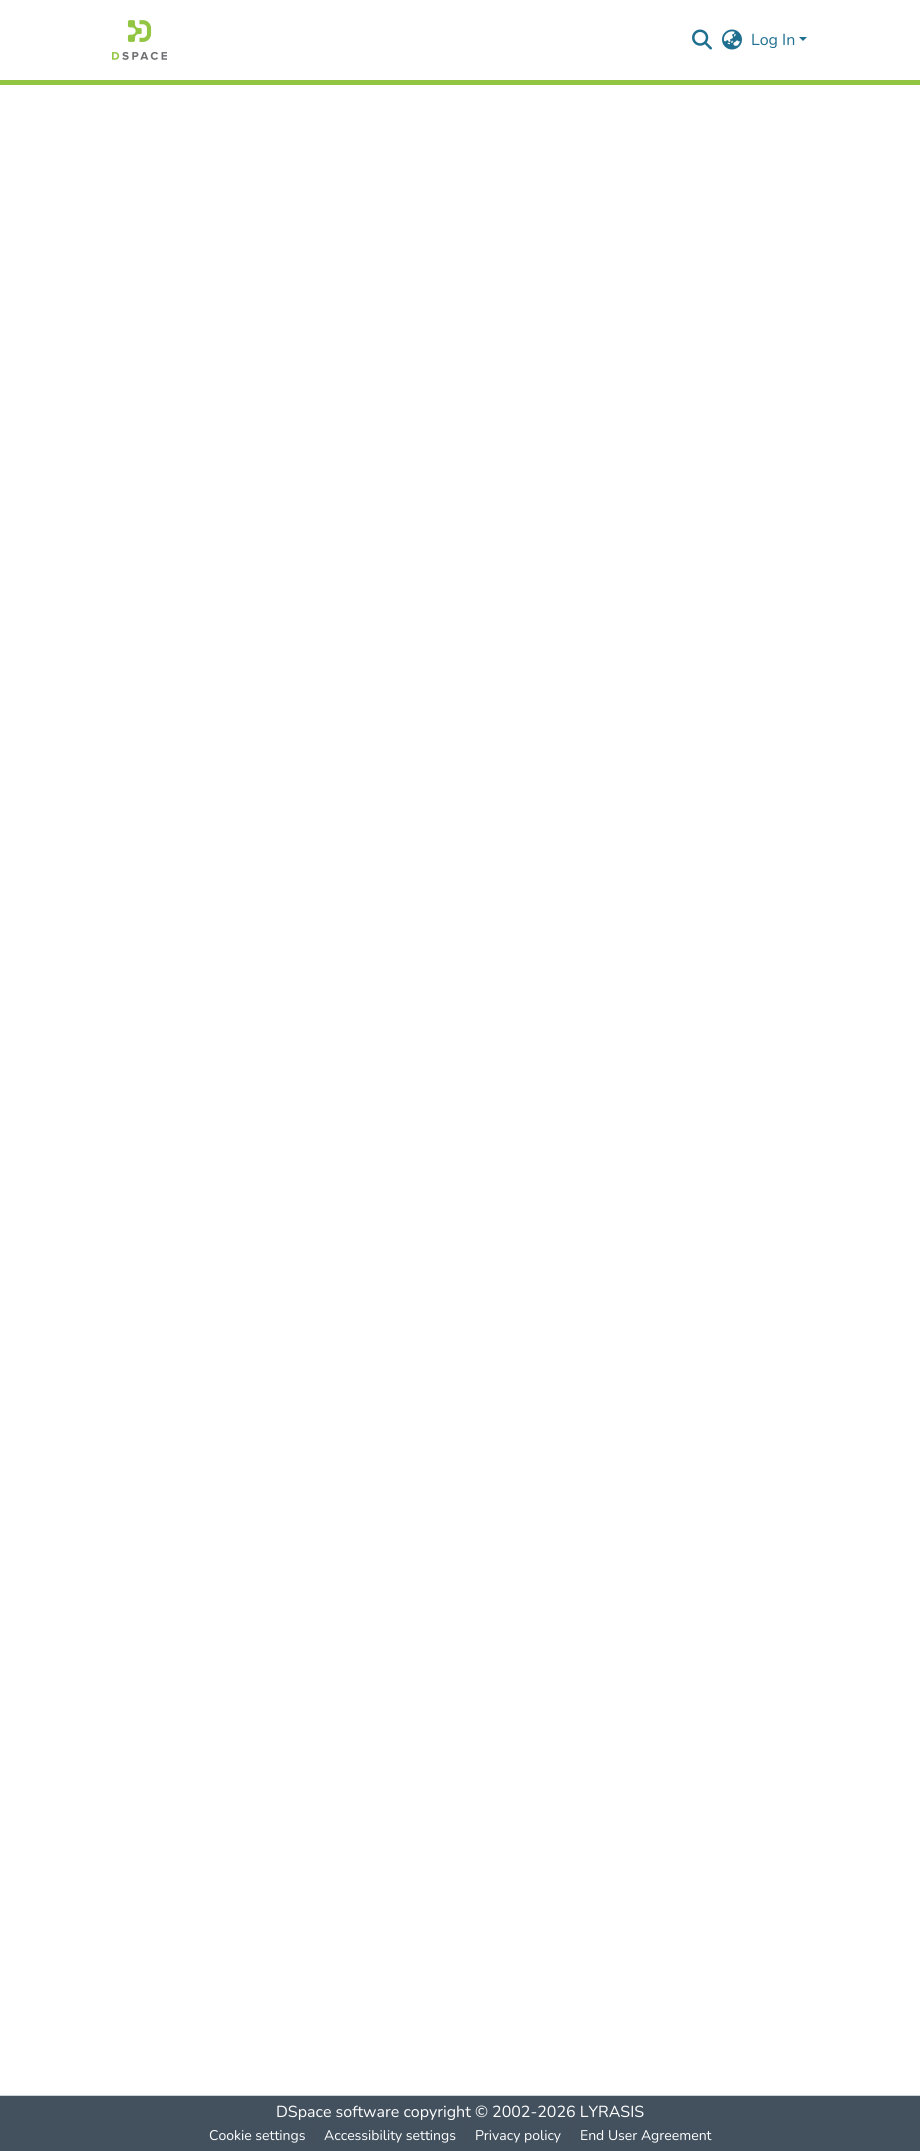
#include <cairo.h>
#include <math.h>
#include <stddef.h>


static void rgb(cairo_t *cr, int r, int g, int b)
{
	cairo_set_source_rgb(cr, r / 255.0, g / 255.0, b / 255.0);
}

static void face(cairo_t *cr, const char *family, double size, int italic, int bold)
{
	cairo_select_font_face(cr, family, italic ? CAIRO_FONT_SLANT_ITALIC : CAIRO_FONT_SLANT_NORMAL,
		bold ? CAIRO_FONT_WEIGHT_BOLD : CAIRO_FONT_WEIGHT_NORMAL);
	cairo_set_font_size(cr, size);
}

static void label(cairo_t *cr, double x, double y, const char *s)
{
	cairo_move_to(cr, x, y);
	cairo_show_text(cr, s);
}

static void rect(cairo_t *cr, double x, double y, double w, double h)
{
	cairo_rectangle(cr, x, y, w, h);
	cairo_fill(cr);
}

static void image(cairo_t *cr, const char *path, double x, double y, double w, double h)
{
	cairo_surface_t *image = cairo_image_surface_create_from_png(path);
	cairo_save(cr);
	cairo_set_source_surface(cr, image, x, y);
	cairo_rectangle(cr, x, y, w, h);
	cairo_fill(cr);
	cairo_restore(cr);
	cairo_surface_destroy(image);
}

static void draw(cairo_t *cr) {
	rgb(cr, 255, 255, 255);
	cairo_paint(cr);
	rgb(cr, 146, 198, 66);
	rect(cr, 0, 80, 920, 5);
	image(cr, "image0.png", 112, 20, 55, 40);
	image(cr, "image1.png", 692, 29, 20, 21);
	image(cr, "image2.png", 722, 29, 20, 21);
	face(cr, "Nunito", 16, 0, 0);
	rgb(cr, 30, 111, 144);
	label(cr, 751, 45, "Log In");
	cairo_new_path(cr);
	cairo_move_to(cr, 799, 37);
	cairo_line_to(cr, 807, 37);
	cairo_line_to(cr, 803, 41);
	cairo_close_path(cr);
	cairo_fill(cr);
	rgb(cr, 67, 81, 95);
	rect(cr, 0, 2096, 920, 55);
	rgb(cr, 206, 212, 218);
	rect(cr, 0, 2095, 920, 1);
	rgb(cr, 255, 255, 255);
	label(cr, 276, 2117, "DSpace software copyright © 2002-2026 LYRASIS");
	face(cr, "Nunito", 14, 0, 0);
	label(cr, 209, 2140, "Cookie settings");
	rgb(cr, 73, 80, 87);
	rect(cr, 314, 2124, 1, 23);
	rgb(cr, 255, 255, 255);
	label(cr, 324, 2140, "Accessibility settings");
	rgb(cr, 73, 80, 87);
	rect(cr, 465, 2124, 1, 23);
	rgb(cr, 255, 255, 255);
	label(cr, 475, 2140, "Privacy policy");
	rgb(cr, 73, 80, 87);
	rect(cr, 570, 2124, 1, 23);
	rgb(cr, 255, 255, 255);
	label(cr, 580, 2140, "End User Agreement");
}

int main(void) {
	cairo_surface_t *surface = cairo_image_surface_create(CAIRO_FORMAT_RGB24, 920, 2151);
	cairo_t *cr = cairo_create(surface);
	cairo_font_options_t *options = cairo_font_options_create();
	cairo_font_options_set_hint_metrics(options, CAIRO_HINT_METRICS_OFF);
	cairo_font_options_set_hint_style(options, CAIRO_HINT_STYLE_NONE);
	cairo_set_font_options(cr, options);
	cairo_set_miter_limit(cr, 4);
	draw(cr);
	cairo_surface_write_to_png(surface, "render.png");
	cairo_font_options_destroy(options);
	cairo_destroy(cr);
	cairo_surface_destroy(surface);
	return 0;
}
